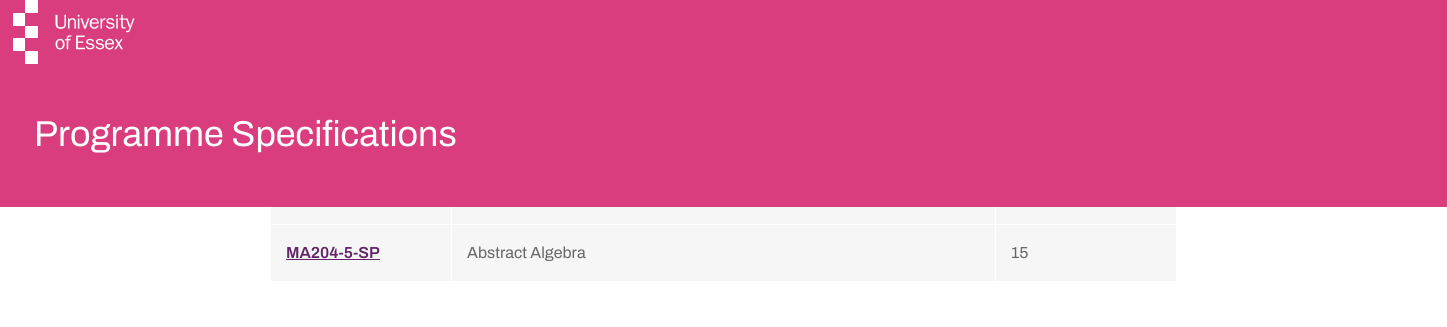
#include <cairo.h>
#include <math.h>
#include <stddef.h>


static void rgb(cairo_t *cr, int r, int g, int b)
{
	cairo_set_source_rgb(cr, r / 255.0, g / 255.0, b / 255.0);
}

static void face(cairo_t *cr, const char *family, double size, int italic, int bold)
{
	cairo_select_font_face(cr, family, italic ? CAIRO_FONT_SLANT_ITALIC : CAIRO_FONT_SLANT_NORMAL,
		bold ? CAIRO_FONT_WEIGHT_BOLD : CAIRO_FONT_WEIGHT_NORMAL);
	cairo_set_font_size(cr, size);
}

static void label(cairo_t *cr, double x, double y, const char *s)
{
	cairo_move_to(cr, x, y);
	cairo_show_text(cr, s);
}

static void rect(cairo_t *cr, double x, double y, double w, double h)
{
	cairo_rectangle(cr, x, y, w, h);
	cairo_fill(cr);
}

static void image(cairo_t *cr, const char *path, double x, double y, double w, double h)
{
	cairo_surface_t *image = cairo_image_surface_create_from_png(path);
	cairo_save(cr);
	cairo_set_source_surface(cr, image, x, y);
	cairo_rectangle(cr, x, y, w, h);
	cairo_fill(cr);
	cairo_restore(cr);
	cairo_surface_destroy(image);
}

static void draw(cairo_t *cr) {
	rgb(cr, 255, 255, 255);
	cairo_paint(cr);
	rgb(cr, 218, 61, 126);
	rect(cr, 0, 0, 1447, 207);
	image(cr, "image0.png", 13, 0, 122, 64);
	face(cr, "Archivo", 36, 0, 0);
	rgb(cr, 255, 255, 255);
	label(cr, 34, 146, "Programme Specifications");
	rgb(cr, 246, 246, 246);
	rect(cr, 271, 207, 905, 74);
	rgb(cr, 255, 255, 255);
	rect(cr, 995, 224, 182, 1);
	rect(cr, 995, 224, 1, 58);
	rect(cr, 451, 224, 545, 1);
	rect(cr, 451, 224, 1, 58);
	rect(cr, 270, 224, 182, 1);
	rect(cr, 451, 207, 1, 18);
	rect(cr, 995, 207, 1, 18);
	face(cr, "Archivo SemiBold", 16, 0, 0);
	rgb(cr, 98, 37, 103);
	label(cr, 286, 258, "MA204-5-SP");
	rect(cr, 286, 259, 94, 1);
	face(cr, "Archivo", 16, 0, 0);
	rgb(cr, 102, 102, 102);
	label(cr, 467, 258, "Abstract Algebra");
	label(cr, 1011, 258, "15");
}

int main(void) {
	cairo_surface_t *surface = cairo_image_surface_create(CAIRO_FORMAT_RGB24, 1447, 327);
	cairo_t *cr = cairo_create(surface);
	cairo_font_options_t *options = cairo_font_options_create();
	cairo_font_options_set_hint_metrics(options, CAIRO_HINT_METRICS_OFF);
	cairo_font_options_set_hint_style(options, CAIRO_HINT_STYLE_NONE);
	cairo_set_font_options(cr, options);
	cairo_set_miter_limit(cr, 4);
	draw(cr);
	cairo_surface_write_to_png(surface, "render.png");
	cairo_font_options_destroy(options);
	cairo_destroy(cr);
	cairo_surface_destroy(surface);
	return 0;
}
